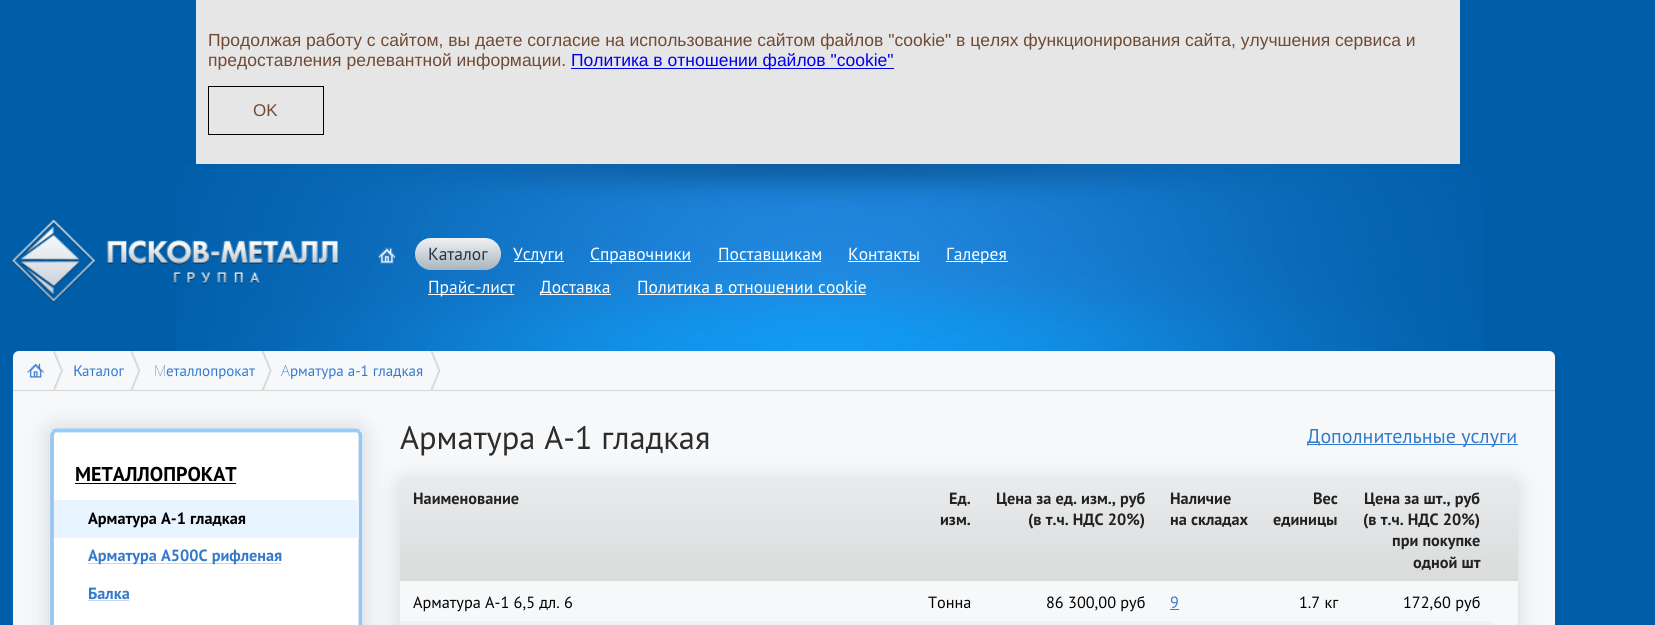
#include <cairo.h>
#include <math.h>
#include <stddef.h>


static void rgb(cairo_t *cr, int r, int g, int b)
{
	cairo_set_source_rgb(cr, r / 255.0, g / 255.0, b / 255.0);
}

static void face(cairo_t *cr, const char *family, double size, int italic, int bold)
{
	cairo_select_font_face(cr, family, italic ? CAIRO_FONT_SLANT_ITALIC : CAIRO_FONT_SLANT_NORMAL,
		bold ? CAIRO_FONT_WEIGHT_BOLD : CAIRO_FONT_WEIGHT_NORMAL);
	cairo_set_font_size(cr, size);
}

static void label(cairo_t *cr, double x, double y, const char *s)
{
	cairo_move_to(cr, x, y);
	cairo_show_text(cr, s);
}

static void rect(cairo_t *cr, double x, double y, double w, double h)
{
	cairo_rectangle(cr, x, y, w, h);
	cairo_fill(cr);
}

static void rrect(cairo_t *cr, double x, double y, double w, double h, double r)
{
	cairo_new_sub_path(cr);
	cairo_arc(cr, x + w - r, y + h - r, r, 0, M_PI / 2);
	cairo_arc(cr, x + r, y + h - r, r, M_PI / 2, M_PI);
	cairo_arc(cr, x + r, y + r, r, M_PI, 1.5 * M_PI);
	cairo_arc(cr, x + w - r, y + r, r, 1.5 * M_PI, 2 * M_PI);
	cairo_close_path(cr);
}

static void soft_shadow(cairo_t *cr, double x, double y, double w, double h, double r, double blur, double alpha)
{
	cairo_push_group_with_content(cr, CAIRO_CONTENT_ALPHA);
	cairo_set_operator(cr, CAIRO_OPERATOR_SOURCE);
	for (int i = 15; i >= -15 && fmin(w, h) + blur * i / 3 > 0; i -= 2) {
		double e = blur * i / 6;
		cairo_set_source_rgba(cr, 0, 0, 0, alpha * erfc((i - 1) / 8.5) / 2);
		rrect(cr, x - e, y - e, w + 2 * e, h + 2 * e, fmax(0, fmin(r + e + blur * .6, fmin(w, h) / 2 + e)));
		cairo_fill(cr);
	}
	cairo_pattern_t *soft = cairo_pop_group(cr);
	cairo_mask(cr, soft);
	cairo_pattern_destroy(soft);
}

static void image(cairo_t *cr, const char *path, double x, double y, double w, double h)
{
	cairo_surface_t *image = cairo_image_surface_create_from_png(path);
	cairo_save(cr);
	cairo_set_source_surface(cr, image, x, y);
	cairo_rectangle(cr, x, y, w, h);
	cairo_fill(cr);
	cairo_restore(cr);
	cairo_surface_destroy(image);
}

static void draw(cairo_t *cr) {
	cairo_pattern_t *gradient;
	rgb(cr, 0, 93, 168);
	cairo_paint(cr);
	rgb(cr, 230, 230, 230);
	rect(cr, 196, 0, 1264, 164);
	face(cr, "Liberation Sans", 17.5, 0, 0);
	rgb(cr, 112, 74, 51);
	label(cr, 208, 46, "Продолжая работу с сайтом, вы даете согласие на использование сайтом файлов \"cookie\" в целях функционирования сайта, улучшения сервиса и");
	label(cr, 208, 66, "предоставления релевантной информации.");
	rgb(cr, 0, 0, 238);
	rect(cr, 571, 68, 323, 1);
	label(cr, 571, 66, "Политика в отношении файлов \"cookie\"");
	cairo_rectangle(cr, 208.5, 86.5, 115, 48);
	rgb(cr, 0, 0, 0);
	cairo_set_line_width(cr, 1);
	cairo_stroke(cr);
	face(cr, "Liberation Sans", 17, 0, 0);
	rgb(cr, 112, 74, 51);
	label(cr, 253, 116, "OK");
	image(cr, "image0.png", 176, 164, 1308, 187);
	image(cr, "image1.png", 12, 220, 326, 83);
	image(cr, "image2.png", 378, 247, 18, 17);
	gradient = cairo_pattern_create_linear(458, 238, 458, 270);
	cairo_pattern_add_color_stop_rgba(gradient, 0, 0.937, 0.949, 0.957, 1);
	cairo_pattern_add_color_stop_rgba(gradient, 1, 0.663, 0.71, 0.745, 1);
	cairo_set_source(cr, gradient);
	cairo_pattern_destroy(gradient);
	rrect(cr, 415, 238, 86, 32, 16);
	cairo_fill(cr);
	face(cr, "PT Sans", 17.5, 0, 0);
	rgb(cr, 38, 52, 63);
	label(cr, 428, 260, "Каталог");
	rgb(cr, 255, 255, 255);
	rect(cr, 514, 261, 50, 1);
	label(cr, 513, 260, "Услуги");
	rect(cr, 590, 261, 101, 1);
	label(cr, 590, 260, "Справочники");
	rect(cr, 718, 261, 103, 1);
	label(cr, 718, 260, "Поставщикам");
	label(cr, 848, 260, "Контакты");
	rect(cr, 848, 261, 72, 1);
	rect(cr, 946, 261, 62, 1);
	label(cr, 946, 260, "Галерея");
	rect(cr, 428, 294, 86, 1);
	label(cr, 428, 293, "Прайс-лист");
	rect(cr, 540, 294, 71, 1);
	label(cr, 540, 293, "Доставка");
	label(cr, 637, 293, "Политика в отношении cookie");
	rect(cr, 638, 294, 228, 1);
	rgb(cr, 246, 248, 250);
	rrect(cr, 13, 351, 1542, 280, 6);
	cairo_fill(cr);
	rgb(cr, 214, 214, 214);
	rect(cr, 13, 390, 1542, 1);
	image(cr, "image3.png", 53, 351, 10, 39);
	image(cr, "image4.png", 27, 363, 17, 15);
	image(cr, "image5.png", 130, 351, 10, 39);
	face(cr, "Noto Sans", 15, 0, 0);
	rgb(cr, 52, 122, 204);
	label(cr, 73, 376, "К");
	face(cr, "PT Sans", 15, 0, 0);
	label(cr, 82, 376, "аталог");
	image(cr, "image6.png", 261, 351, 11, 39);
	face(cr, "Noto Sans Thin", 15, 0, 0);
	label(cr, 154, 376, "М");
	face(cr, "PT Sans", 15, 0, 0);
	label(cr, 166, 376, "еталлопрокат");
	image(cr, "image7.png", 430, 351, 10, 39);
	face(cr, "Noto Sans ExtraLight", 15, 0, 0);
	label(cr, 281, 376, "А");
	face(cr, "PT Sans", 15, 0, 0);
	label(cr, 290, 376, "рматура а-1 гладкая");
	rgb(cr, 203, 205, 210);
	soft_shadow(cr, 46, 425, 320, 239, 10, 9.5, 0.61);
	rgb(cr, 255, 255, 255);
	rrect(cr, 50, 429, 313, 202, 6);
	cairo_fill(cr);
	cairo_new_path(cr);
	cairo_move_to(cr, 53, 432);
	cairo_curve_to(cr, 54, 431, 55, 430.5, 56, 430.5);
	cairo_line_to(cr, 356, 430.5);
	cairo_curve_to(cr, 357.5, 430.5, 358.5, 431, 359.5, 432);
	rgb(cr, 148, 206, 255);
	cairo_set_line_width(cr, 3.8);
	cairo_stroke(cr);
	cairo_new_path(cr);
	cairo_move_to(cr, 359.5, 432);
	cairo_line_to(cr, 360.5, 435);
	cairo_line_to(cr, 360.5, 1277.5);
	cairo_line_to(cr, 359.5, 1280.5);
	rgb(cr, 154, 198, 236);
	cairo_stroke(cr);
	cairo_new_path(cr);
	cairo_move_to(cr, 53, 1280.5);
	cairo_line_to(cr, 52, 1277.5);
	cairo_line_to(cr, 52, 435);
	cairo_line_to(cr, 53, 432);
	cairo_stroke(cr);
	face(cr, "PT Sans", 20, 0, 1);
	rgb(cr, 0, 0, 0);
	label(cr, 75, 481, "МЕТАЛЛОПРОКАТ");
	rect(cr, 75, 483, 161, 1);
	rgb(cr, 232, 244, 255);
	rect(cr, 54, 500, 305, 38);
	face(cr, "PT Sans", 16.25, 0, 1);
	rgb(cr, 0, 0, 0);
	label(cr, 88, 524, "Арматура А-1 гладкая");
	rgb(cr, 197, 217, 234);
	rect(cr, 88, 563, 193, 1);
	rgb(cr, 52, 122, 204);
	label(cr, 88, 561, "Арматура А500С рифленая");
	label(cr, 88, 599, "Балка");
	rgb(cr, 197, 217, 234);
	rect(cr, 88, 600, 41, 1);
	rgb(cr, 203, 205, 210);
	soft_shadow(cr, 396, 478, 1125, 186, 10, 9.5, 0.61);
	face(cr, "PT Sans", 32.5, 0, 0);
	rgb(cr, 44, 44, 44);
	label(cr, 400, 449, "Арматура А-1 гладкая");
	rgb(cr, 52, 122, 204);
	rect(cr, 1308, 444, 210, 1);
	face(cr, "PT Sans", 20, 0, 0);
	label(cr, 1307, 443, "Дополнительные услуги");
	rgb(cr, 246, 248, 250);
	rect(cr, 400, 581, 1118, 44);
	gradient = cairo_pattern_create_linear(658, 481, 658, 581);
	cairo_pattern_add_color_stop_rgba(gradient, 0, 0.91, 0.918, 0.925, 1);
	cairo_pattern_add_color_stop_rgba(gradient, 1, 0.855, 0.859, 0.859, 1);
	cairo_set_source(cr, gradient);
	cairo_pattern_destroy(gradient);
	rect(cr, 400, 481, 515, 100);
	face(cr, "PT Sans", 16.25, 0, 1);
	rgb(cr, 34, 34, 34);
	label(cr, 413, 504, "Наименование");
	gradient = cairo_pattern_create_linear(949, 481, 949, 581);
	cairo_pattern_add_color_stop_rgba(gradient, 0, 0.91, 0.918, 0.925, 1);
	cairo_pattern_add_color_stop_rgba(gradient, 1, 0.855, 0.859, 0.859, 1);
	cairo_set_source(cr, gradient);
	cairo_pattern_destroy(gradient);
	rect(cr, 915, 481, 69, 100);
	rgb(cr, 34, 34, 34);
	label(cr, 949, 504, "Ед.");
	label(cr, 940, 525, "изм.");
	gradient = cairo_pattern_create_linear(1071, 481, 1071, 581);
	cairo_pattern_add_color_stop_rgba(gradient, 0, 0.91, 0.918, 0.925, 1);
	cairo_pattern_add_color_stop_rgba(gradient, 1, 0.855, 0.859, 0.859, 1);
	cairo_set_source(cr, gradient);
	cairo_pattern_destroy(gradient);
	rect(cr, 984, 481, 174, 100);
	rgb(cr, 34, 34, 34);
	label(cr, 996, 504, "Цена за ед. изм., руб");
	label(cr, 1028, 525, "(в т.ч. НДС 20%)");
	gradient = cairo_pattern_create_linear(1209, 481, 1209, 581);
	cairo_pattern_add_color_stop_rgba(gradient, 0, 0.91, 0.918, 0.925, 1);
	cairo_pattern_add_color_stop_rgba(gradient, 1, 0.855, 0.859, 0.859, 1);
	cairo_set_source(cr, gradient);
	cairo_pattern_destroy(gradient);
	rect(cr, 1158, 481, 103, 100);
	rgb(cr, 34, 34, 34);
	label(cr, 1170, 504, "Наличие");
	label(cr, 1170, 525, "на складах");
	gradient = cairo_pattern_create_linear(1306, 481, 1306, 581);
	cairo_pattern_add_color_stop_rgba(gradient, 0, 0.91, 0.918, 0.925, 1);
	cairo_pattern_add_color_stop_rgba(gradient, 1, 0.855, 0.859, 0.859, 1);
	cairo_set_source(cr, gradient);
	cairo_pattern_destroy(gradient);
	rect(cr, 1261, 481, 89, 100);
	rgb(cr, 34, 34, 34);
	label(cr, 1313, 504, "Вес");
	label(cr, 1273, 525, "единицы");
	gradient = cairo_pattern_create_linear(1421, 481, 1421, 581);
	cairo_pattern_add_color_stop_rgba(gradient, 0, 0.91, 0.918, 0.925, 1);
	cairo_pattern_add_color_stop_rgba(gradient, 1, 0.855, 0.859, 0.859, 1);
	cairo_set_source(cr, gradient);
	cairo_pattern_destroy(gradient);
	rect(cr, 1350, 481, 143, 100);
	rgb(cr, 34, 34, 34);
	label(cr, 1364, 504, "Цена за шт., руб");
	label(cr, 1363, 525, "(в т.ч. НДС 20%)");
	label(cr, 1392, 546, "при покупке");
	label(cr, 1413, 568, "одной шт");
	gradient = cairo_pattern_create_linear(1505, 481, 1505, 581);
	cairo_pattern_add_color_stop_rgba(gradient, 0, 0.91, 0.918, 0.925, 1);
	cairo_pattern_add_color_stop_rgba(gradient, 1, 0.855, 0.859, 0.859, 1);
	cairo_set_source(cr, gradient);
	cairo_pattern_destroy(gradient);
	rect(cr, 1493, 481, 25, 100);
	face(cr, "PT Sans", 16.25, 0, 0);
	rgb(cr, 0, 0, 0);
	label(cr, 413, 608, "Арматура А-1 6,5 дл. 6");
	label(cr, 928, 608, "Тонна");
	label(cr, 1046, 608, "86 300,00 руб");
	rgb(cr, 52, 122, 204);
	label(cr, 1170, 608, "9");
	rect(cr, 1170, 609, 9, 1);
	rgb(cr, 0, 0, 0);
	label(cr, 1299, 608, "1.7 кг");
	label(cr, 1403, 608, "172,60 руб");
	rgb(cr, 239, 241, 245);
	rect(cr, 400, 621, 1093, 4);
}

int main(void) {
	cairo_surface_t *surface = cairo_image_surface_create(CAIRO_FORMAT_RGB24, 1655, 625);
	cairo_t *cr = cairo_create(surface);
	cairo_font_options_t *options = cairo_font_options_create();
	cairo_font_options_set_hint_metrics(options, CAIRO_HINT_METRICS_OFF);
	cairo_font_options_set_hint_style(options, CAIRO_HINT_STYLE_NONE);
	cairo_set_font_options(cr, options);
	cairo_set_miter_limit(cr, 4);
	draw(cr);
	cairo_surface_write_to_png(surface, "render.png");
	cairo_font_options_destroy(options);
	cairo_destroy(cr);
	cairo_surface_destroy(surface);
	return 0;
}
